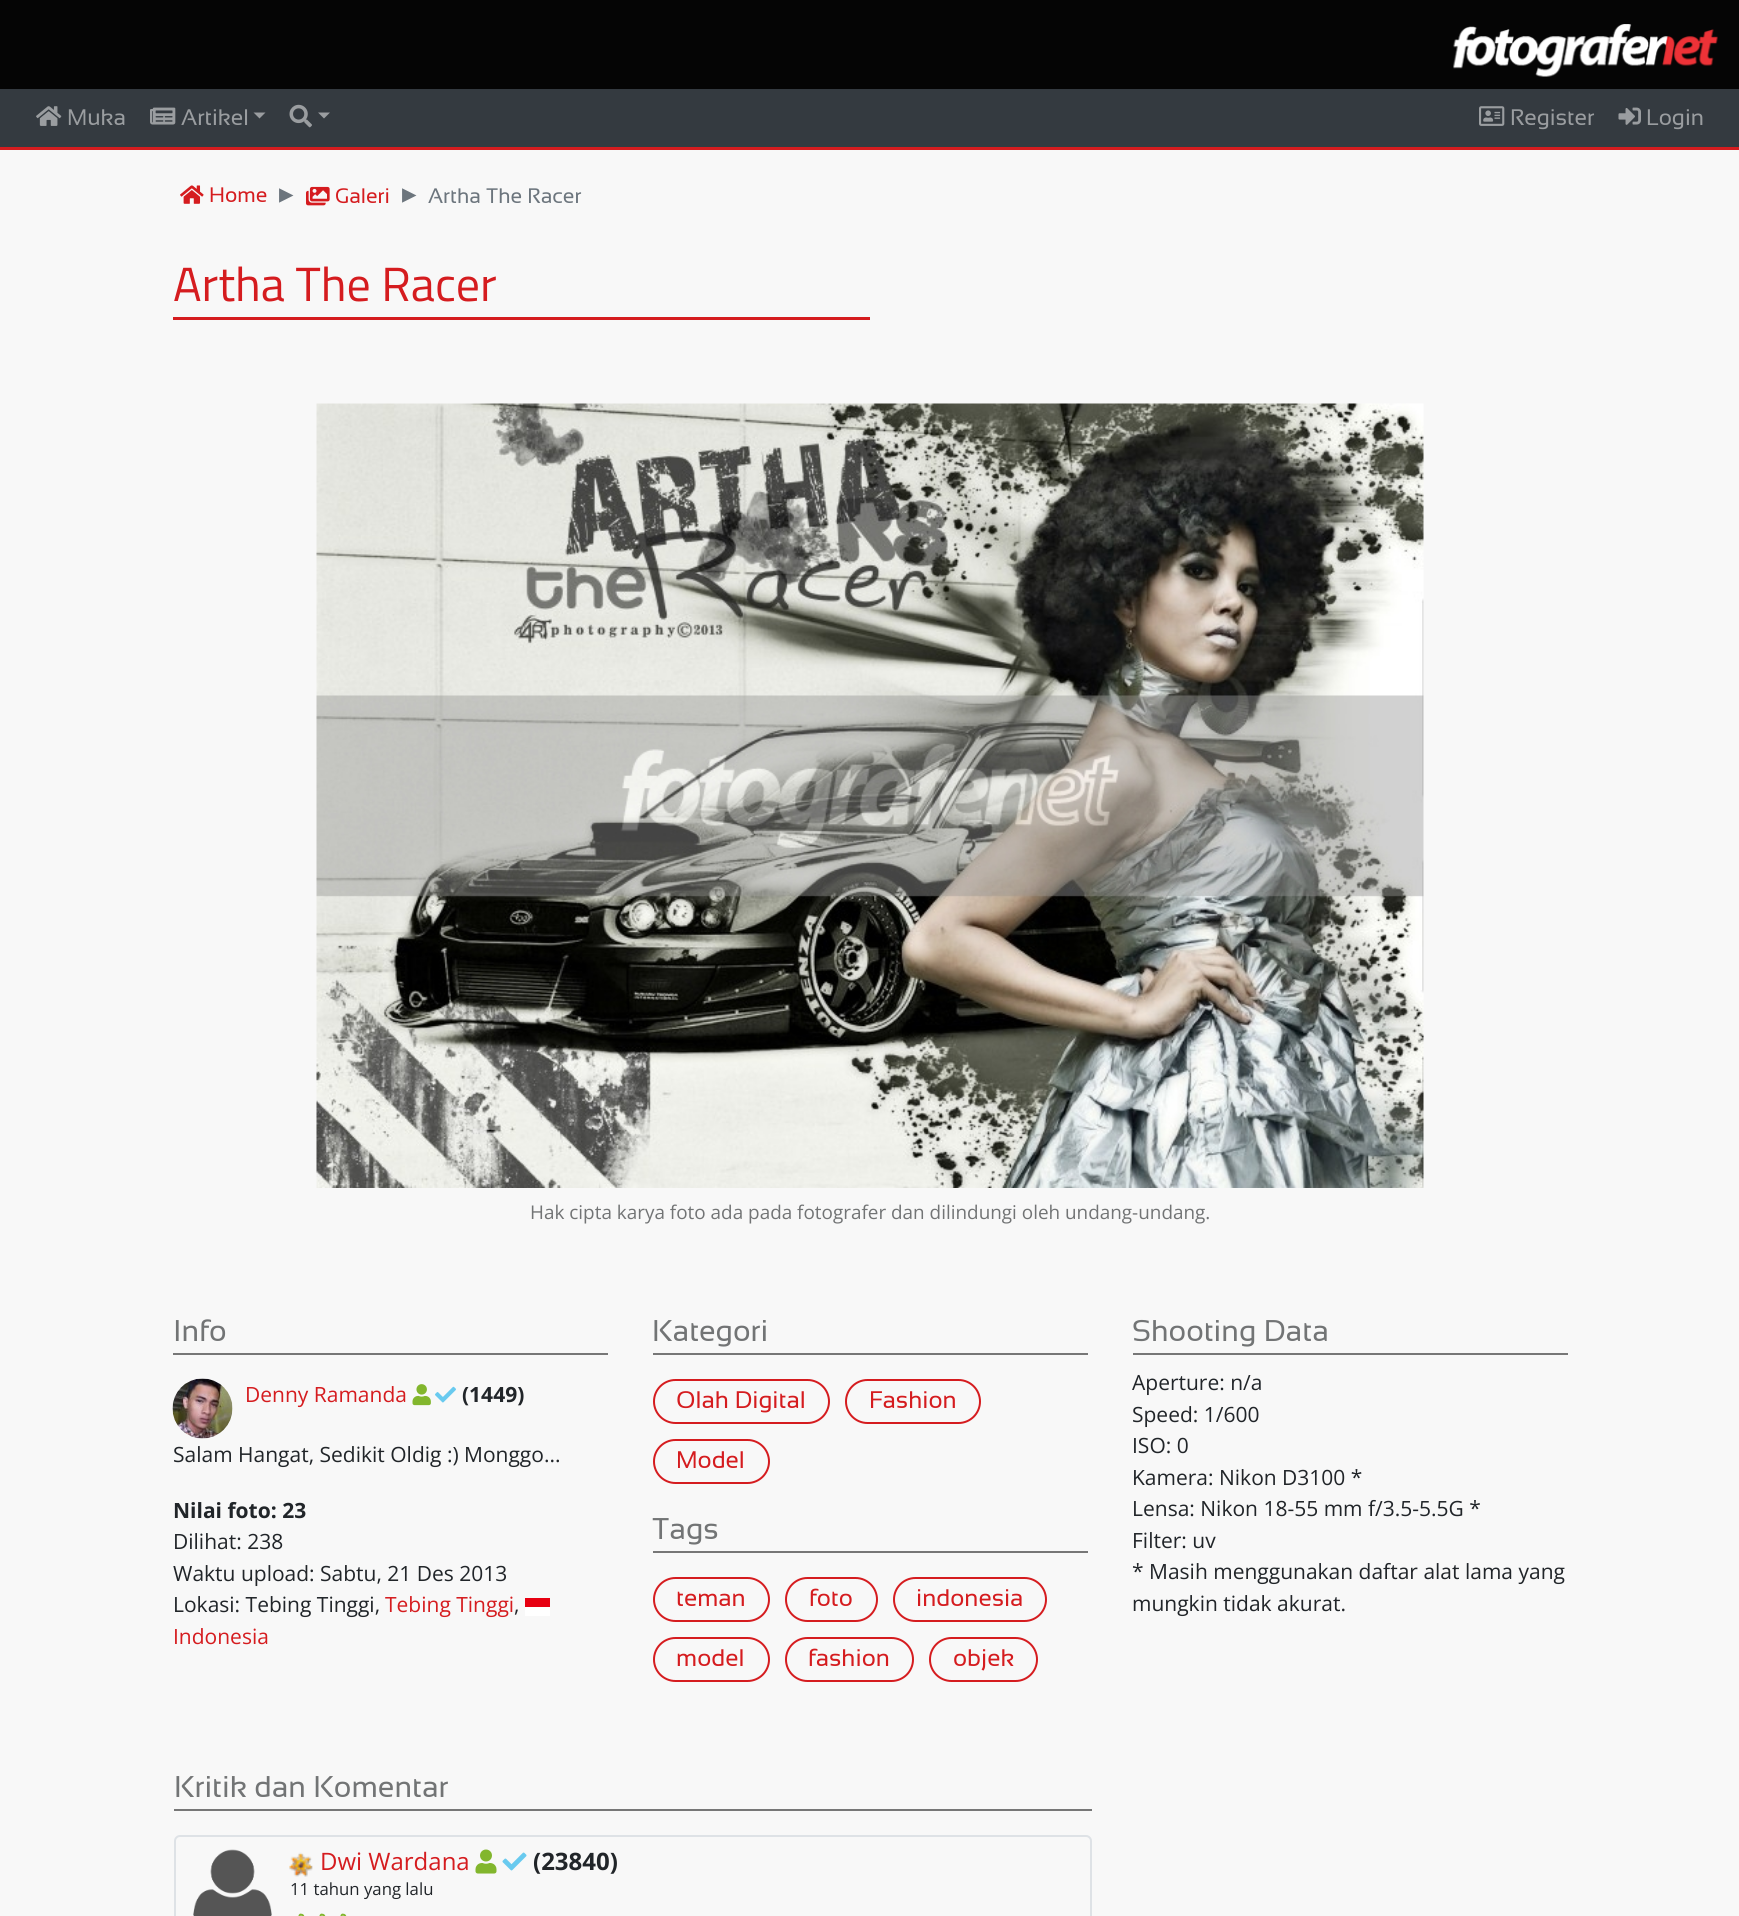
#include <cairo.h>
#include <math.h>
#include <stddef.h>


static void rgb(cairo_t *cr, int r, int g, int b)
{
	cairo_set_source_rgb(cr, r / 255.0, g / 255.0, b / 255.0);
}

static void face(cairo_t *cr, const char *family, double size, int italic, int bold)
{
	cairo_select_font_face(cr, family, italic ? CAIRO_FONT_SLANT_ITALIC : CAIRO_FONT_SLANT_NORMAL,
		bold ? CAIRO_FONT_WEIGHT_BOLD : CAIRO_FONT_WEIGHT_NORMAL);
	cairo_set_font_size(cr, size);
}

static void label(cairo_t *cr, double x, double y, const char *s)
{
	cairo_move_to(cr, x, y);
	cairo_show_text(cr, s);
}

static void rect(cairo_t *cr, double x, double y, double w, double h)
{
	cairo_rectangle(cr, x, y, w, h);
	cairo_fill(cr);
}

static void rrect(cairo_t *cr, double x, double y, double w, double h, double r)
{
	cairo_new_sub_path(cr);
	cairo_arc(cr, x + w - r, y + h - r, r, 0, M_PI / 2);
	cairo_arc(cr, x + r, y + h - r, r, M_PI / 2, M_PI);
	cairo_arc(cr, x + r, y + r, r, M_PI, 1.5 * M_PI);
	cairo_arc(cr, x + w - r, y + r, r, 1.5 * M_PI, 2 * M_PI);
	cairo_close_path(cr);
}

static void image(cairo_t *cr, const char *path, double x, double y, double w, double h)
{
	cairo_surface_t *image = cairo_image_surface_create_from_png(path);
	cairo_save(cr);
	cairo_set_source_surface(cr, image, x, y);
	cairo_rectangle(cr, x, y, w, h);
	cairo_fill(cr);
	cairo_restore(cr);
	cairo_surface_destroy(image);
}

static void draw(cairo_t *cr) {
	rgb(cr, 248, 248, 248);
	cairo_paint(cr);
	rgb(cr, 5, 5, 5);
	rect(cr, 0, 0, 1739, 89);
	image(cr, "image0.png", 1453, 24, 265, 53);
	rgb(cr, 52, 58, 64);
	rect(cr, 0, 89, 1739, 58);
	rgb(cr, 213, 28, 31);
	rect(cr, 0, 147, 1739, 3);
	image(cr, "image1.png", 36, 106, 26, 20);
	face(cr, "Sansation", 22.5, 0, 0);
	rgb(cr, 154, 157, 160);
	label(cr, 67, 125, "Muka");
	image(cr, "image2.png", 150, 107, 26, 18);
	label(cr, 181, 125, "Artikel");
	cairo_new_path(cr);
	cairo_move_to(cr, 253.5, 112.5);
	cairo_line_to(cr, 265.5, 112.5);
	cairo_line_to(cr, 259.5, 118.5);
	cairo_close_path(cr);
	cairo_fill(cr);
	image(cr, "image3.png", 289, 104, 23, 24);
	cairo_new_path(cr);
	cairo_move_to(cr, 318, 112.5);
	cairo_line_to(cr, 330, 112.5);
	cairo_line_to(cr, 324, 118.5);
	cairo_close_path(cr);
	cairo_fill(cr);
	image(cr, "image4.png", 1479, 106, 26, 20);
	label(cr, 1510, 125, "Register");
	image(cr, "image5.png", 1618, 107, 23, 18);
	label(cr, 1646, 125, "Login");
	image(cr, "image6.png", 180, 185, 24, 19);
	face(cr, "Sansation", 21, 0, 0);
	rgb(cr, 213, 28, 31);
	label(cr, 209, 202, "Home");
	face(cr, "DejaVu Sans", 29, 0, 0);
	rgb(cr, 108, 117, 125);
	label(cr, 279, 203, "▸");
	image(cr, "image7.png", 306, 186, 24, 20);
	face(cr, "Sansation", 21, 0, 0);
	rgb(cr, 213, 28, 31);
	label(cr, 335, 203, "Galeri");
	face(cr, "DejaVu Sans", 29, 0, 0);
	rgb(cr, 108, 117, 125);
	label(cr, 402, 203, "▸");
	face(cr, "Sansation", 21, 0, 0);
	label(cr, 428, 203, "Artha The Racer");
	face(cr, "Titillium Web", 48, 0, 0);
	rgb(cr, 213, 28, 31);
	label(cr, 173, 301, "Artha The Racer");
	rect(cr, 173, 317, 697, 3);
	image(cr, "image8.png", 316, 403, 1108, 785);
	face(cr, "Open Sans", 18.9, 0, 0);
	rgb(cr, 114, 116, 117);
	label(cr, 530, 1219, "Hak cipta karya foto ada pada fotografer dan dilindungi oleh undang-undang.");
	rgb(cr, 119, 119, 119);
	rect(cr, 173, 1353, 435, 2);
	face(cr, "Sansation", 30, 0, 0);
	rgb(cr, 114, 116, 117);
	label(cr, 173, 1341, "Info");
	image(cr, "image9.png", 172, 1378, 61, 61);
	face(cr, "Open Sans", 21, 0, 0);
	rgb(cr, 213, 28, 31);
	label(cr, 245, 1402, "Denny Ramanda");
	image(cr, "image10.png", 412, 1384, 19, 22);
	image(cr, "image11.png", 435, 1386, 21, 17);
	face(cr, "Open Sans", 21, 0, 1);
	rgb(cr, 33, 37, 41);
	label(cr, 462, 1402, "(1449)");
	face(cr, "Open Sans", 21, 0, 0);
	label(cr, 173, 1462, "Salam Hangat, Sedikit Oldig :) Monggo...");
	face(cr, "Open Sans", 21, 0, 1);
	label(cr, 173, 1518, "Nilai foto: 23");
	face(cr, "Open Sans", 21, 0, 0);
	label(cr, 173, 1549, "Dilihat: 238");
	label(cr, 173, 1581, "Waktu upload: Sabtu, 21 Des 2013");
	label(cr, 173, 1612, "Lokasi: Tebing Tinggi,");
	rgb(cr, 213, 28, 31);
	label(cr, 385, 1612, "Tebing Tinggi");
	rgb(cr, 33, 37, 41);
	label(cr, 514, 1612, ",");
	rgb(cr, 231, 0, 17);
	rect(cr, 525, 1598, 25, 9);
	rgb(cr, 255, 255, 255);
	rect(cr, 525, 1607, 25, 9);
	rgb(cr, 213, 28, 31);
	label(cr, 173, 1644, "Indonesia");
	rgb(cr, 119, 119, 119);
	rect(cr, 653, 1353, 435, 2);
	face(cr, "Sansation", 30, 0, 0);
	rgb(cr, 114, 116, 117);
	label(cr, 652, 1341, "Kategori");
	rrect(cr, 654, 1380, 175, 43, 21.5);
	rgb(cr, 213, 28, 31);
	cairo_stroke(cr);
	face(cr, "Sansation", 24, 0, 0);
	label(cr, 676, 1408, "Olah Digital");
	rrect(cr, 846, 1380, 134, 43, 21.5);
	cairo_stroke(cr);
	label(cr, 869, 1408, "Fashion");
	rrect(cr, 654, 1440, 115, 43, 21.5);
	cairo_stroke(cr);
	label(cr, 676, 1468, "Model");
	rgb(cr, 119, 119, 119);
	rect(cr, 653, 1551, 435, 2);
	face(cr, "Sansation", 30, 0, 0);
	rgb(cr, 114, 116, 117);
	label(cr, 652, 1539, "Tags");
	rrect(cr, 654, 1578, 115, 43, 21.5);
	rgb(cr, 213, 28, 31);
	cairo_stroke(cr);
	face(cr, "Sansation", 24, 0, 0);
	label(cr, 676, 1606, "teman");
	rrect(cr, 786, 1578, 91, 43, 21.5);
	cairo_stroke(cr);
	label(cr, 809, 1606, "foto");
	rrect(cr, 894, 1578, 152, 43, 21.5);
	cairo_stroke(cr);
	label(cr, 916, 1606, "indonesia");
	rrect(cr, 654, 1638, 115, 43, 21.5);
	cairo_stroke(cr);
	label(cr, 676, 1666, "model");
	rrect(cr, 786, 1638, 127, 43, 21.5);
	cairo_stroke(cr);
	label(cr, 808, 1666, "fashion");
	rrect(cr, 930, 1638, 107, 43, 21.5);
	cairo_stroke(cr);
	label(cr, 953, 1666, "objek");
	rgb(cr, 119, 119, 119);
	rect(cr, 1133, 1353, 435, 2);
	face(cr, "Sansation", 30, 0, 0);
	rgb(cr, 114, 116, 117);
	label(cr, 1132, 1341, "Shooting Data");
	face(cr, "Open Sans", 21, 0, 0);
	rgb(cr, 33, 37, 41);
	label(cr, 1132, 1390, "Aperture: n/a");
	label(cr, 1132, 1422, "Speed: 1/600");
	label(cr, 1132, 1453, "ISO: 0");
	label(cr, 1132, 1485, "Kamera: Nikon D3100 *");
	label(cr, 1132, 1516, "Lensa: Nikon 18-55 mm f/3.5-5.5G *");
	label(cr, 1132, 1548, "Filter: uv");
	label(cr, 1132, 1579, "* Masih menggunakan daftar alat lama yang");
	label(cr, 1132, 1611, "mungkin tidak akurat.");
	rgb(cr, 119, 119, 119);
	rect(cr, 174, 1809, 918, 2);
	face(cr, "Sansation", 30, 0, 0);
	rgb(cr, 114, 116, 117);
	label(cr, 174, 1797, "Kritik dan Komentar");
	rrect(cr, 175, 1836, 916, 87, 5);
	rgb(cr, 222, 226, 230);
	cairo_stroke(cr);
	image(cr, "image12.png", 193, 1849, 79, 67);
	image(cr, "image13.png", 289, 1852, 24, 25);
	face(cr, "Open Sans", 24, 0, 0);
	rgb(cr, 213, 28, 31);
	label(cr, 320, 1870, "Dwi Wardana");
	image(cr, "image14.png", 475, 1849, 22, 25);
	image(cr, "image15.png", 502, 1852, 25, 19);
	face(cr, "Open Sans", 24, 0, 1);
	rgb(cr, 33, 37, 41);
	label(cr, 533, 1870, "(23840)");
	face(cr, "Open Sans", 16.75, 0, 0);
	label(cr, 290, 1895, "11 tahun yang lalu");
	image(cr, "image16.png", 298, 1913, 7, 3);
	image(cr, "image16.png", 319, 1913, 7, 3);
	image(cr, "image16.png", 340, 1913, 7, 3);
}

int main(void) {
	cairo_surface_t *surface = cairo_image_surface_create(CAIRO_FORMAT_RGB24, 1739, 1916);
	cairo_t *cr = cairo_create(surface);
	cairo_font_options_t *options = cairo_font_options_create();
	cairo_font_options_set_hint_metrics(options, CAIRO_HINT_METRICS_OFF);
	cairo_font_options_set_hint_style(options, CAIRO_HINT_STYLE_NONE);
	cairo_set_font_options(cr, options);
	cairo_set_miter_limit(cr, 4);
	draw(cr);
	cairo_surface_write_to_png(surface, "render.png");
	cairo_font_options_destroy(options);
	cairo_destroy(cr);
	cairo_surface_destroy(surface);
	return 0;
}
